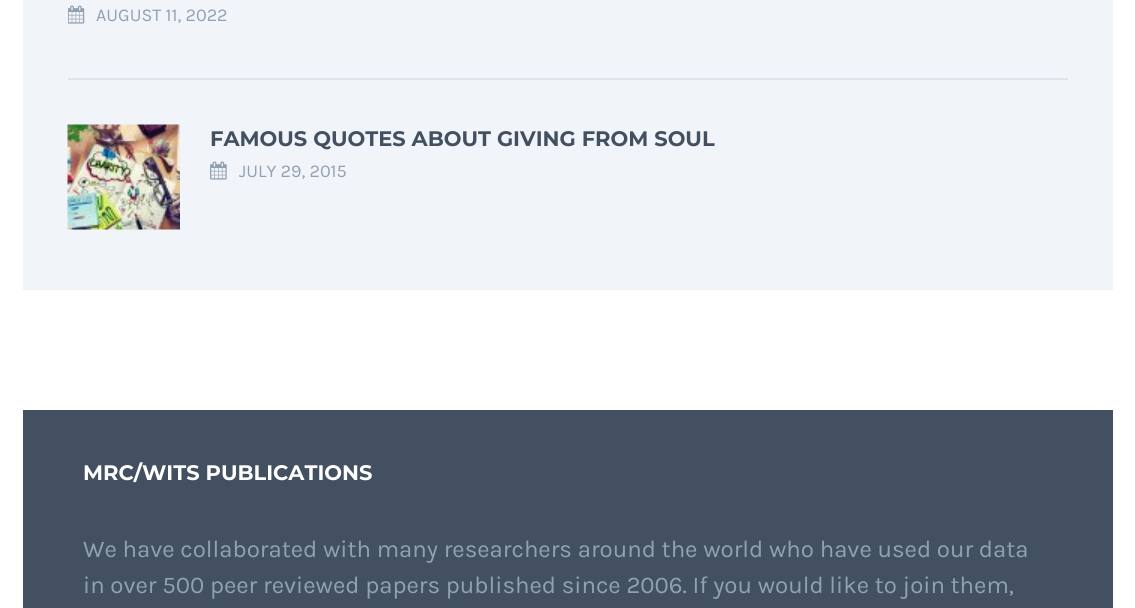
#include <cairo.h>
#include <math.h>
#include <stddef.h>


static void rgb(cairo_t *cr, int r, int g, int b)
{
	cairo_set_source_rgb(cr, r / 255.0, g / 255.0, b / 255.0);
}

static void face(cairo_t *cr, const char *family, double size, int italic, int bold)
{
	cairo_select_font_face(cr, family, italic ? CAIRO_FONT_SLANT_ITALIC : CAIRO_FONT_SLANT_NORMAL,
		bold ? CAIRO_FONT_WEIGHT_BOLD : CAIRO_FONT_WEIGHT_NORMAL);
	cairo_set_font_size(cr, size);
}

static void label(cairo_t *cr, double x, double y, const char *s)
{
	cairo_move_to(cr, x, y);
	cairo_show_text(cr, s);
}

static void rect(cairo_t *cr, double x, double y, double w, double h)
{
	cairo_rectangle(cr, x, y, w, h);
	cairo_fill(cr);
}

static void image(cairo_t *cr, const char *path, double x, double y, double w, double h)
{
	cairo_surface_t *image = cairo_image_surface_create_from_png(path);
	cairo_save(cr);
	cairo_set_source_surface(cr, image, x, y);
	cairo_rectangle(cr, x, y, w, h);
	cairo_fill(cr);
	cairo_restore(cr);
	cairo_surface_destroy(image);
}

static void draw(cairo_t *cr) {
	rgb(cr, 255, 255, 255);
	cairo_paint(cr);
	rgb(cr, 241, 244, 248);
	rect(cr, 23, 0, 1090, 290);
	rgb(cr, 225, 229, 235);
	rect(cr, 68, 78, 1000, 2);
	image(cr, "image0.png", 68, 5, 17, 19);
	face(cr, "Karla", 18, 0, 0);
	rgb(cr, 145, 161, 180);
	label(cr, 96, 21, "AUGUST 11, 2022");
	image(cr, "image1.png", 67, 124, 113, 106);
	face(cr, "Montserrat", 21, 0, 1);
	rgb(cr, 67, 80, 97);
	label(cr, 210, 146, "FAMOUS QUOTES ABOUT GIVING FROM SOUL");
	image(cr, "image2.png", 210, 161, 17, 19);
	face(cr, "Karla", 18, 0, 0);
	rgb(cr, 145, 161, 180);
	label(cr, 239, 177, "JULY 29, 2015");
	rgb(cr, 67, 80, 97);
	rect(cr, 23, 410, 1090, 198);
	face(cr, "Montserrat", 21, 0, 1);
	rgb(cr, 255, 255, 255);
	label(cr, 83, 480, "MRC/WITS PUBLICATIONS");
	face(cr, "Karla", 24, 0, 0);
	rgb(cr, 145, 161, 180);
	label(cr, 83, 557, "We have collaborated with many researchers around the world who have used our data");
	label(cr, 83, 593, "in over 500 peer reviewed papers published since 2006. If you would like to join them,");
}

int main(void) {
	cairo_surface_t *surface = cairo_image_surface_create(CAIRO_FORMAT_RGB24, 1135, 608);
	cairo_t *cr = cairo_create(surface);
	cairo_font_options_t *options = cairo_font_options_create();
	cairo_font_options_set_hint_metrics(options, CAIRO_HINT_METRICS_OFF);
	cairo_font_options_set_hint_style(options, CAIRO_HINT_STYLE_NONE);
	cairo_set_font_options(cr, options);
	cairo_set_miter_limit(cr, 4);
	draw(cr);
	cairo_surface_write_to_png(surface, "render.png");
	cairo_font_options_destroy(options);
	cairo_destroy(cr);
	cairo_surface_destroy(surface);
	return 0;
}
